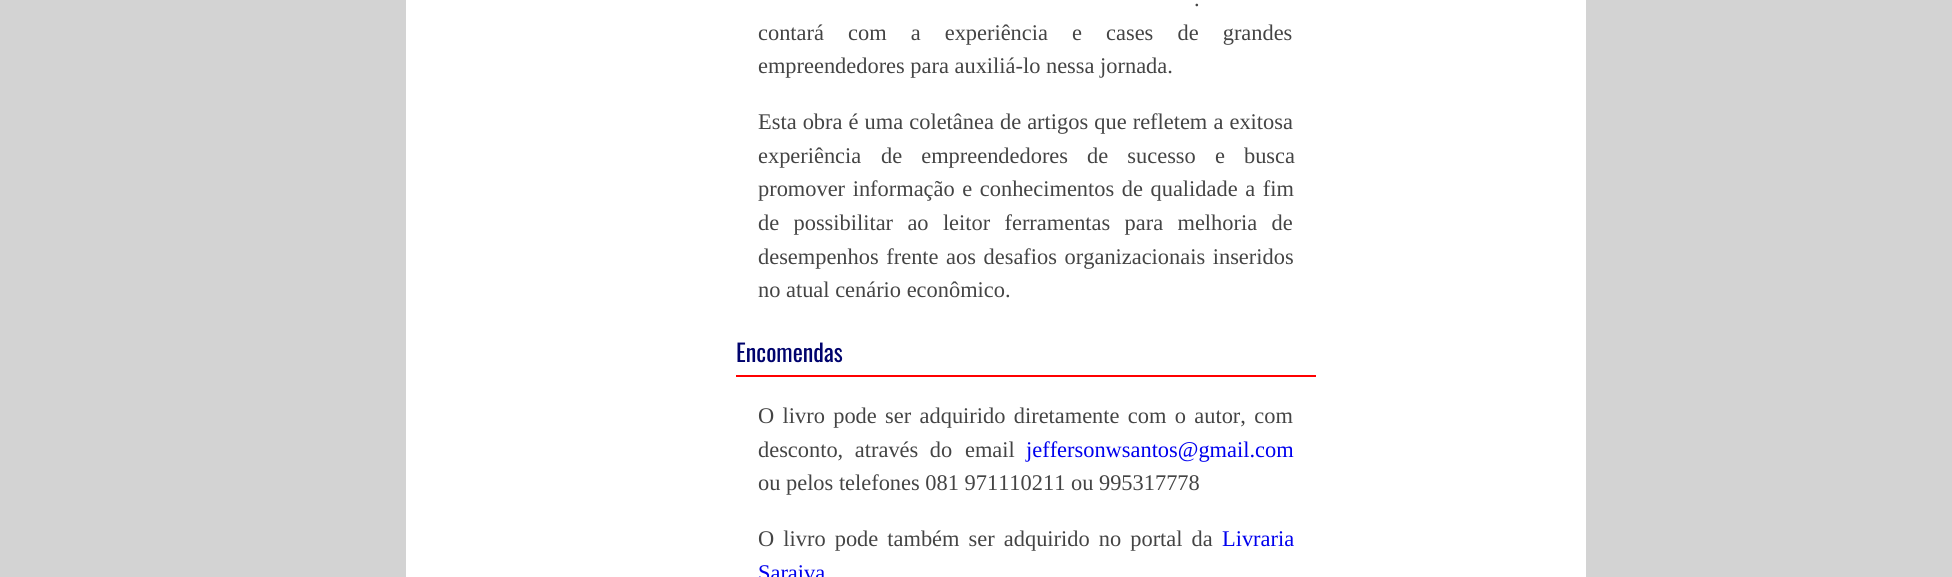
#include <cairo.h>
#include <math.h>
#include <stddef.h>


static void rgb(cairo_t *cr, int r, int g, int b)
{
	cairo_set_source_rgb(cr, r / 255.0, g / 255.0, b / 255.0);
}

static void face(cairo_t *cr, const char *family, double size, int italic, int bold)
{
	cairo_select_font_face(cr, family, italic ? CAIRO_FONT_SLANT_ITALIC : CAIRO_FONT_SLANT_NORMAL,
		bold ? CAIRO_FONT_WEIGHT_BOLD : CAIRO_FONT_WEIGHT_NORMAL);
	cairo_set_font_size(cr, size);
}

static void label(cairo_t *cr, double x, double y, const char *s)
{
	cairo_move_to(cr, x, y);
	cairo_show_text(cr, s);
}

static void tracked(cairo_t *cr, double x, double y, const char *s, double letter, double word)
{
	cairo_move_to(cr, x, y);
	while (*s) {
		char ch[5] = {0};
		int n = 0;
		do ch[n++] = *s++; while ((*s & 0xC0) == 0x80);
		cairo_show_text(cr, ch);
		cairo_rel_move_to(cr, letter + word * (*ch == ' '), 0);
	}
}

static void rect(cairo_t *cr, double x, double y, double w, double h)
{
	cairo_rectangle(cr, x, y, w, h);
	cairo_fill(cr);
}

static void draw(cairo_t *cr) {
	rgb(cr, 211, 211, 211);
	cairo_paint(cr);
	rgb(cr, 255, 255, 255);
	rect(cr, 406, 0, 1180, 577);
	face(cr, "Liberation Serif", 22.4, 0, 0);
	rgb(cr, 68, 68, 68);
	tracked(cr, 1194, 6, ".", 0, 8);
	tracked(cr, 758, 40, "contará com a experiência e cases de grandes", 0, 18.5);
	label(cr, 758, 73, "empreendedores para auxiliá-lo nessa jornada.");
	tracked(cr, 758, 129, "Esta obra é uma coletânea de artigos que refletem a exitosa", 0, 0.5);
	label(cr, 758, 163, "experiência");
	tracked(cr, 881, 163, "de empreendedores de sucesso e busca", 0, 13.5);
	tracked(cr, 758, 196, "promover informação e conhecimentos de qualidade a fim", 0, 2);
	tracked(cr, 758, 230, "de possibilitar ao leitor ferramentas para melhoria de", 0, 8.75);
	tracked(cr, 758, 264, "desempenhos frente aos desafios organizacionais inseridos", 0, 2);
	label(cr, 758, 297, "no atual cenário econômico.");
	rgb(cr, 255, 0, 0);
	rect(cr, 736, 375, 580, 2);
	face(cr, "Oswald", 24, 0, 0);
	rgb(cr, 0, 3, 109);
	label(cr, 736, 362, "Encomendas");
	face(cr, "Liberation Serif", 22.4, 0, 0);
	rgb(cr, 68, 68, 68);
	tracked(cr, 758, 423, "O livro pode ser adquirido diretamente com o autor, com", 0, 2.75);
	tracked(cr, 758, 457, "desconto, através do", 0, 6);
	label(cr, 965, 457, "email");
	rgb(cr, 0, 0, 238);
	label(cr, 1026, 457, "jeffersonwsantos@gmail.com");
	rgb(cr, 68, 68, 68);
	label(cr, 758, 490, "ou pelos telefones 081 971110211 ou 995317778");
	tracked(cr, 758, 546, "O livro pode também ser adquirido no portal da", 0, 3.5);
	rgb(cr, 0, 0, 238);
	label(cr, 1222, 546, "Livraria");
	label(cr, 758, 580, "Saraiva");
}

int main(void) {
	cairo_surface_t *surface = cairo_image_surface_create(CAIRO_FORMAT_RGB24, 1952, 577);
	cairo_t *cr = cairo_create(surface);
	cairo_font_options_t *options = cairo_font_options_create();
	cairo_font_options_set_hint_metrics(options, CAIRO_HINT_METRICS_OFF);
	cairo_font_options_set_hint_style(options, CAIRO_HINT_STYLE_NONE);
	cairo_set_font_options(cr, options);
	cairo_set_miter_limit(cr, 4);
	draw(cr);
	cairo_surface_write_to_png(surface, "render.png");
	cairo_font_options_destroy(options);
	cairo_destroy(cr);
	cairo_surface_destroy(surface);
	return 0;
}
